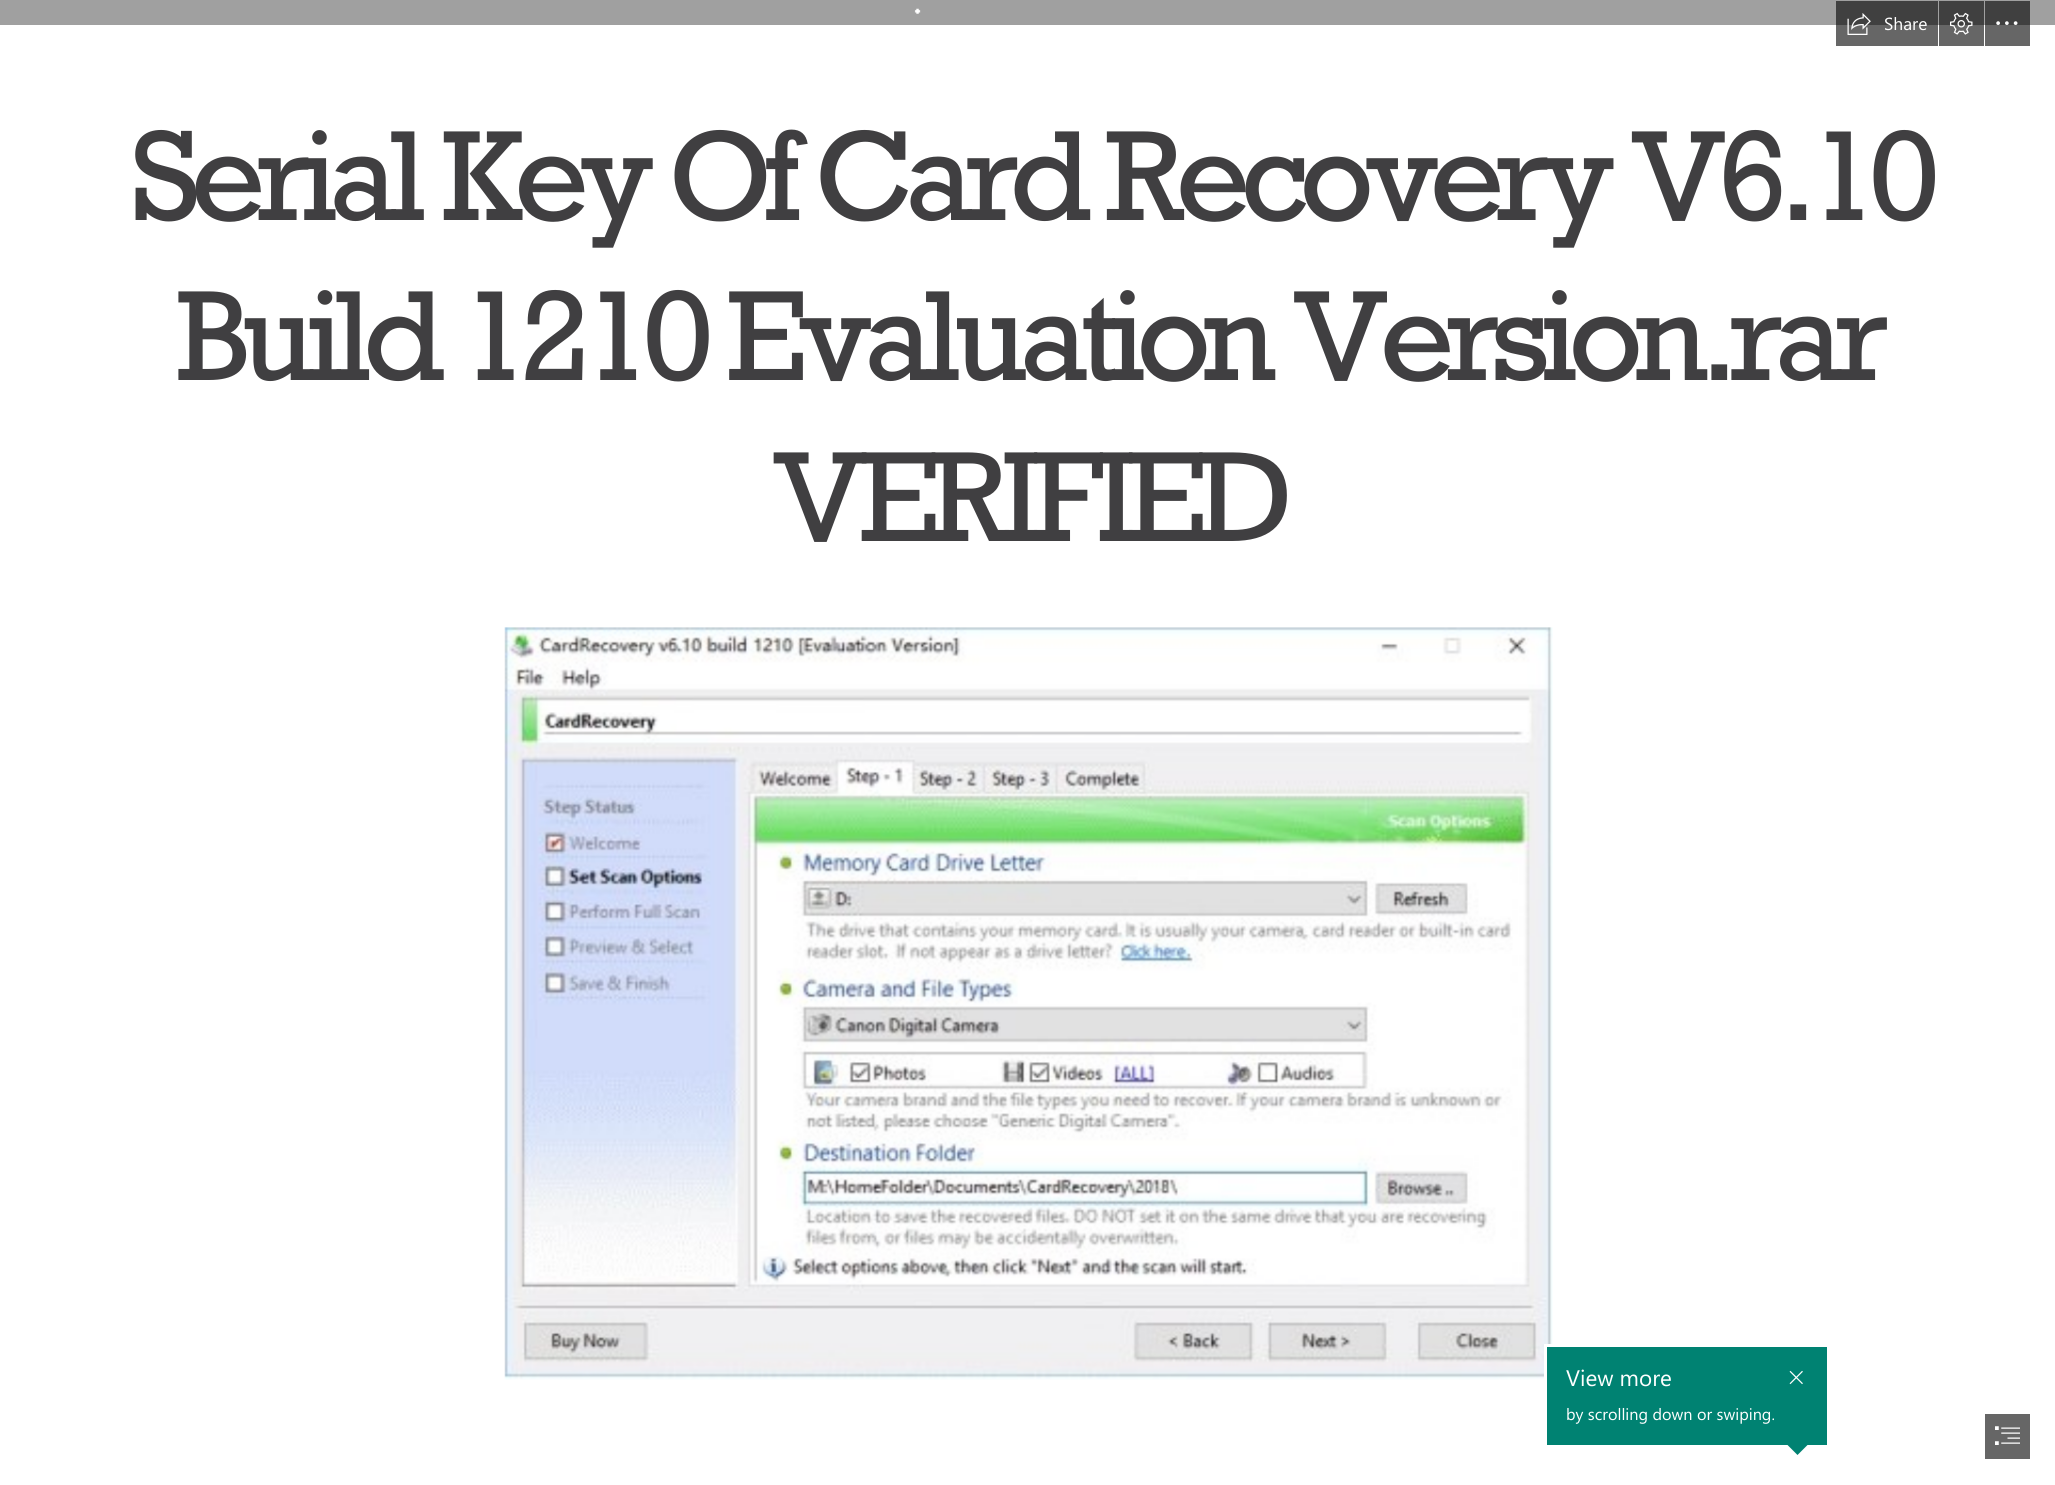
#include <cairo.h>
#include <math.h>
#include <stddef.h>


static void rgb(cairo_t *cr, int r, int g, int b)
{
	cairo_set_source_rgb(cr, r / 255.0, g / 255.0, b / 255.0);
}

static void face(cairo_t *cr, const char *family, double size, int italic, int bold)
{
	cairo_select_font_face(cr, family, italic ? CAIRO_FONT_SLANT_ITALIC : CAIRO_FONT_SLANT_NORMAL,
		bold ? CAIRO_FONT_WEIGHT_BOLD : CAIRO_FONT_WEIGHT_NORMAL);
	cairo_set_font_size(cr, size);
}

static void label(cairo_t *cr, double x, double y, const char *s)
{
	cairo_move_to(cr, x, y);
	cairo_show_text(cr, s);
}

static void tracked(cairo_t *cr, double x, double y, const char *s, double letter, double word)
{
	cairo_move_to(cr, x, y);
	while (*s) {
		char ch[5] = {0};
		int n = 0;
		do ch[n++] = *s++; while ((*s & 0xC0) == 0x80);
		cairo_show_text(cr, ch);
		cairo_rel_move_to(cr, letter + word * (*ch == ' '), 0);
	}
}

static void rect(cairo_t *cr, double x, double y, double w, double h)
{
	cairo_rectangle(cr, x, y, w, h);
	cairo_fill(cr);
}

static void image(cairo_t *cr, const char *path, double x, double y, double w, double h)
{
	cairo_surface_t *image = cairo_image_surface_create_from_png(path);
	cairo_save(cr);
	cairo_set_source_surface(cr, image, x, y);
	cairo_rectangle(cr, x, y, w, h);
	cairo_fill(cr);
	cairo_restore(cr);
	cairo_surface_destroy(image);
}

static void draw(cairo_t *cr) {
	rgb(cr, 255, 255, 255);
	cairo_paint(cr);
	rgb(cr, 160, 160, 160);
	rect(cr, 0, 0, 2055, 25);
	rgb(cr, 64, 64, 64);
	rect(cr, 1836, 1, 102, 24);
	rgb(cr, 102, 102, 102);
	rect(cr, 1836, 25, 102, 21);
	image(cr, "image0.png", 1847, 13, 24, 22);
	face(cr, "Segoe UI", 17.5, 0, 0);
	rgb(cr, 255, 255, 255);
	label(cr, 1884, 30, "Share");
	rgb(cr, 64, 64, 64);
	rect(cr, 1939, 1, 45, 24);
	rgb(cr, 102, 102, 102);
	rect(cr, 1939, 25, 45, 21);
	image(cr, "image1.png", 1950, 12, 23, 23);
	rgb(cr, 64, 64, 64);
	rect(cr, 1985, 1, 45, 24);
	image(cr, "image2.png", 1996, 21, 22, 4);
	image(cr, "image3.png", 914, 8, 7, 6);
	rgb(cr, 102, 102, 102);
	rect(cr, 1985, 25, 45, 21);
	face(cr, "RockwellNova", 120.4, 0, 0);
	rgb(cr, 64, 63, 65);
	tracked(cr, 131, 220, "Serial Key Of Card Recovery V6.10", -9.4, 0);
	tracked(cr, 176, 380, "Build 1210 Evaluation Version.rar", -9.4, 0);
	tracked(cr, 771, 541, "VERIFIED", -9.4, 0);
	image(cr, "image4.png", 504, 627, 1049, 753);
	rgb(cr, 0, 130, 114);
	cairo_rectangle(cr, 1545.5, 1345.5, 283, 101);
	cairo_fill_preserve(cr);
	rgb(cr, 255, 255, 255);
	cairo_set_line_width(cr, 3);
	cairo_stroke(cr);
	face(cr, "Segoe UI", 22.5, 0, 0);
	label(cr, 1566, 1386, "View more");
	face(cr, "Segoe UI", 16.25, 0, 0);
	label(cr, 1566, 1420, "by scrolling down or swiping.");
	image(cr, "image5.png", 1789, 1370, 14, 15);
	rgb(cr, 0, 130, 114);
	cairo_new_path(cr);
	cairo_move_to(cr, 1787.5, 1445);
	cairo_line_to(cr, 1807.5, 1445);
	cairo_line_to(cr, 1797.5, 1455);
	cairo_close_path(cr);
	cairo_fill(cr);
	rgb(cr, 102, 102, 102);
	rect(cr, 1985, 1414, 45, 45);
	image(cr, "image6.png", 1995, 1426, 25, 19);
}

int main(void) {
	cairo_surface_t *surface = cairo_image_surface_create(CAIRO_FORMAT_RGB24, 2055, 1485);
	cairo_t *cr = cairo_create(surface);
	cairo_font_options_t *options = cairo_font_options_create();
	cairo_font_options_set_hint_metrics(options, CAIRO_HINT_METRICS_OFF);
	cairo_font_options_set_hint_style(options, CAIRO_HINT_STYLE_NONE);
	cairo_set_font_options(cr, options);
	cairo_set_miter_limit(cr, 4);
	draw(cr);
	cairo_surface_write_to_png(surface, "render.png");
	cairo_font_options_destroy(options);
	cairo_destroy(cr);
	cairo_surface_destroy(surface);
	return 0;
}
